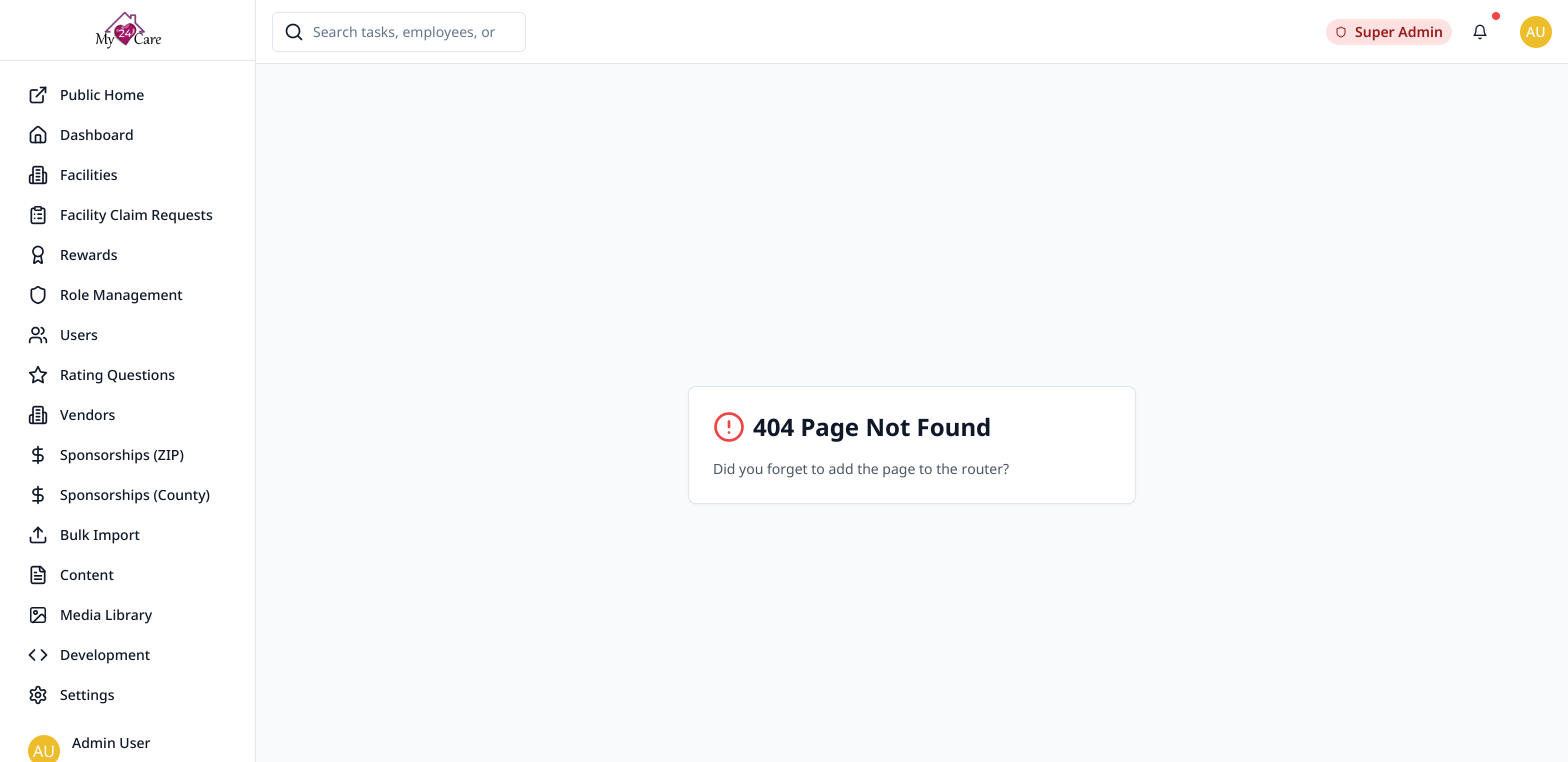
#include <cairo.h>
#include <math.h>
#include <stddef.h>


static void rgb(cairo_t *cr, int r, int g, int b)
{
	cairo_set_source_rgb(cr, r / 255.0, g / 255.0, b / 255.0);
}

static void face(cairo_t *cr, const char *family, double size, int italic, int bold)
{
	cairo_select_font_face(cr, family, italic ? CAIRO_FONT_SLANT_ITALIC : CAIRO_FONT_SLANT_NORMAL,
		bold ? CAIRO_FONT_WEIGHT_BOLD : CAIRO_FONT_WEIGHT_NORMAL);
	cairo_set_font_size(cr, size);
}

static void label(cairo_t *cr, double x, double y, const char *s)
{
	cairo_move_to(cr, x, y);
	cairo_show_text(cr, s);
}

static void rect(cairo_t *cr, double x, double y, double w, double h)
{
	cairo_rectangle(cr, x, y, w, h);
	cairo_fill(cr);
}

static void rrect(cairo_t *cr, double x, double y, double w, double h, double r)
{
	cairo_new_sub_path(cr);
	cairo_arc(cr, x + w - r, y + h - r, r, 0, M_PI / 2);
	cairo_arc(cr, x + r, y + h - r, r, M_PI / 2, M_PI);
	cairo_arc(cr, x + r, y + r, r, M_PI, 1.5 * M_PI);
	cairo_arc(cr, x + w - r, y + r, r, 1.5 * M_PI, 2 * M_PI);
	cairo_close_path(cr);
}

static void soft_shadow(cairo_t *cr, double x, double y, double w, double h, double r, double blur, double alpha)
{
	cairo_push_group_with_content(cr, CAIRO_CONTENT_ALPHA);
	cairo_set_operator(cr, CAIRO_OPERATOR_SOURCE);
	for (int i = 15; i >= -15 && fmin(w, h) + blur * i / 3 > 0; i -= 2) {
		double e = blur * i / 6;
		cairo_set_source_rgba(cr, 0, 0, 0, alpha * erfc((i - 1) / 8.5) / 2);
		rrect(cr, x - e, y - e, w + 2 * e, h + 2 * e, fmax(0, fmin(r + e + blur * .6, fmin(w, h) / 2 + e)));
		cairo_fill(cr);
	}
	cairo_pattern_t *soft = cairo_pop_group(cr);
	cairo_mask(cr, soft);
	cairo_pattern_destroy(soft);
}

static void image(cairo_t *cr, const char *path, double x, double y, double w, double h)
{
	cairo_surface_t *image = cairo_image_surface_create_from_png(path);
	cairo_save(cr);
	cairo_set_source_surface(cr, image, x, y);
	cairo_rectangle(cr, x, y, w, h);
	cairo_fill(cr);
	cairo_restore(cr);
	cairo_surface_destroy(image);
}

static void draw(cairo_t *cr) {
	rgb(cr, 255, 255, 255);
	cairo_paint(cr);
	rgb(cr, 225, 231, 239);
	rect(cr, 255, 0, 1, 762);
	rect(cr, 0, 60, 255, 1);
	image(cr, "image0.png", 95, 11, 67, 38);
	image(cr, "image1.png", 29, 86, 18, 18);
	face(cr, "Noto Sans Medium", 14, 0, 0);
	rgb(cr, 15, 23, 41);
	label(cr, 60, 100, "Public Home");
	image(cr, "image2.png", 29, 125, 18, 19);
	label(cr, 60, 140, "Dashboard");
	image(cr, "image3.png", 28, 165, 20, 20);
	label(cr, 60, 180, "Facilities");
	image(cr, "image4.png", 30, 206, 16, 19);
	label(cr, 60, 220, "Facility Claim Requests");
	image(cr, "image5.png", 32, 245, 12, 20);
	label(cr, 60, 260, "Rewards");
	image(cr, "image6.png", 30, 285, 16, 20);
	label(cr, 60, 300, "Role Management");
	image(cr, "image7.png", 28, 326, 20, 18);
	label(cr, 60, 340, "Users");
	image(cr, "image8.png", 28, 365, 20, 19);
	label(cr, 60, 380, "Rating Questions");
	image(cr, "image3.png", 28, 405, 20, 20);
	label(cr, 60, 420, "Vendors");
	image(cr, "image9.png", 32, 445, 12, 20);
	label(cr, 60, 460, "Sponsorships (ZIP)");
	image(cr, "image9.png", 32, 485, 12, 20);
	label(cr, 60, 500, "Sponsorships (County)");
	image(cr, "image10.png", 29, 526, 18, 18);
	label(cr, 60, 540, "Bulk Import");
	image(cr, "image11.png", 30, 565, 16, 20);
	label(cr, 60, 580, "Content");
	image(cr, "image12.png", 30, 607, 17, 17);
	label(cr, 60, 620, "Media Library");
	cairo_new_path(cr);
	cairo_move_to(cr, 41.5, 660);
	cairo_line_to(cr, 46.5, 655);
	cairo_line_to(cr, 41.5, 650);
	cairo_move_to(cr, 34.5, 650);
	cairo_line_to(cr, 29.5, 655);
	cairo_line_to(cr, 34.5, 660);
	cairo_set_line_width(cr, 1.7);
	cairo_set_line_cap(cr, CAIRO_LINE_CAP_ROUND);
	cairo_set_line_join(cr, CAIRO_LINE_JOIN_ROUND);
	cairo_stroke(cr);
	label(cr, 60, 660, "Development");
	image(cr, "image13.png", 29, 685, 18, 20);
	label(cr, 60, 700, "Settings");
	label(cr, 72, 748, "Admin User");
	rgb(cr, 238, 189, 43);
	cairo_new_path(cr);
	cairo_arc(cr, 44, 751, 16, 0, 2 * M_PI);
	cairo_fill(cr);
	face(cr, "Noto Sans", 16, 0, 0);
	rgb(cr, 255, 255, 255);
	label(cr, 33, 757, "AU");
	rgb(cr, 225, 231, 239);
	rect(cr, 256, 63, 1312, 1);
	rrect(cr, 272.5, 12.5, 253, 39, 5.5);
	cairo_set_line_width(cr, 1);
	cairo_set_line_cap(cr, CAIRO_LINE_CAP_BUTT);
	cairo_set_line_join(cr, CAIRO_LINE_JOIN_MITER);
	cairo_stroke(cr);
	cairo_arc(cr, 293, 31, 6.5, 0, 2 * M_PI);
	rgb(cr, 15, 23, 41);
	cairo_set_line_width(cr, 1.7);
	cairo_stroke(cr);
	cairo_new_path(cr);
	cairo_move_to(cr, 301.5, 39.5);
	cairo_line_to(cr, 298, 36);
	cairo_set_line_cap(cr, CAIRO_LINE_CAP_ROUND);
	cairo_set_line_join(cr, CAIRO_LINE_JOIN_ROUND);
	cairo_stroke(cr);
	face(cr, "Noto Sans", 14, 0, 0);
	rgb(cr, 101, 117, 139);
	label(cr, 313, 37, "Search tasks, employees, or");
	rgb(cr, 254, 226, 226);
	rrect(cr, 1326, 19, 126, 26, 13);
	cairo_fill(cr);
	image(cr, "image14.png", 1336, 26, 10, 12);
	face(cr, "Noto Sans SemiBold", 14, 0, 0);
	rgb(cr, 153, 27, 27);
	label(cr, 1355, 37, "Super Admin");
	rgb(cr, 239, 68, 68);
	cairo_new_path(cr);
	cairo_arc(cr, 1496, 16, 4, 0, 2 * M_PI);
	cairo_fill(cr);
	image(cr, "image15.png", 1473, 24, 14, 16);
	rgb(cr, 238, 189, 43);
	cairo_arc(cr, 1536, 32, 16, 0, 2 * M_PI);
	cairo_fill(cr);
	face(cr, "Noto Sans Medium", 14, 0, 0);
	rgb(cr, 255, 255, 255);
	label(cr, 1526, 37, "AU");
	rgb(cr, 249, 250, 251);
	rect(cr, 256, 64, 1312, 698);
	rgb(cr, 0, 0, 0);
	soft_shadow(cr, 688, 387, 448, 118, 8, 1, 0.05);
	rgb(cr, 255, 255, 255);
	rrect(cr, 688.5, 386.5, 447, 117, 7.5);
	cairo_fill_preserve(cr);
	rgb(cr, 225, 231, 239);
	cairo_set_line_width(cr, 1);
	cairo_set_line_cap(cr, CAIRO_LINE_CAP_BUTT);
	cairo_set_line_join(cr, CAIRO_LINE_JOIN_MITER);
	cairo_stroke(cr);
	cairo_arc(cr, 729, 427, 13.5, 0, 2 * M_PI);
	rgb(cr, 239, 68, 68);
	cairo_set_line_width(cr, 2.7);
	cairo_stroke(cr);
	cairo_new_path(cr);
	cairo_move_to(cr, 729, 421.5);
	cairo_line_to(cr, 729, 427);
	cairo_move_to(cr, 729, 432.5);
	cairo_line_to(cr, 729, 432.5);
	cairo_set_line_cap(cr, CAIRO_LINE_CAP_ROUND);
	cairo_set_line_join(cr, CAIRO_LINE_JOIN_ROUND);
	cairo_stroke(cr);
	face(cr, "Noto Sans", 24, 0, 1);
	rgb(cr, 15, 23, 41);
	label(cr, 753, 436, "404 Page Not Found");
	face(cr, "Noto Sans", 14, 0, 0);
	rgb(cr, 75, 85, 99);
	label(cr, 713, 474, "Did you forget to add the page to the router?");
}

int main(void) {
	cairo_surface_t *surface = cairo_image_surface_create(CAIRO_FORMAT_RGB24, 1568, 762);
	cairo_t *cr = cairo_create(surface);
	cairo_font_options_t *options = cairo_font_options_create();
	cairo_font_options_set_hint_metrics(options, CAIRO_HINT_METRICS_OFF);
	cairo_font_options_set_hint_style(options, CAIRO_HINT_STYLE_NONE);
	cairo_set_font_options(cr, options);
	cairo_set_miter_limit(cr, 4);
	draw(cr);
	cairo_surface_write_to_png(surface, "render.png");
	cairo_font_options_destroy(options);
	cairo_destroy(cr);
	cairo_surface_destroy(surface);
	return 0;
}
